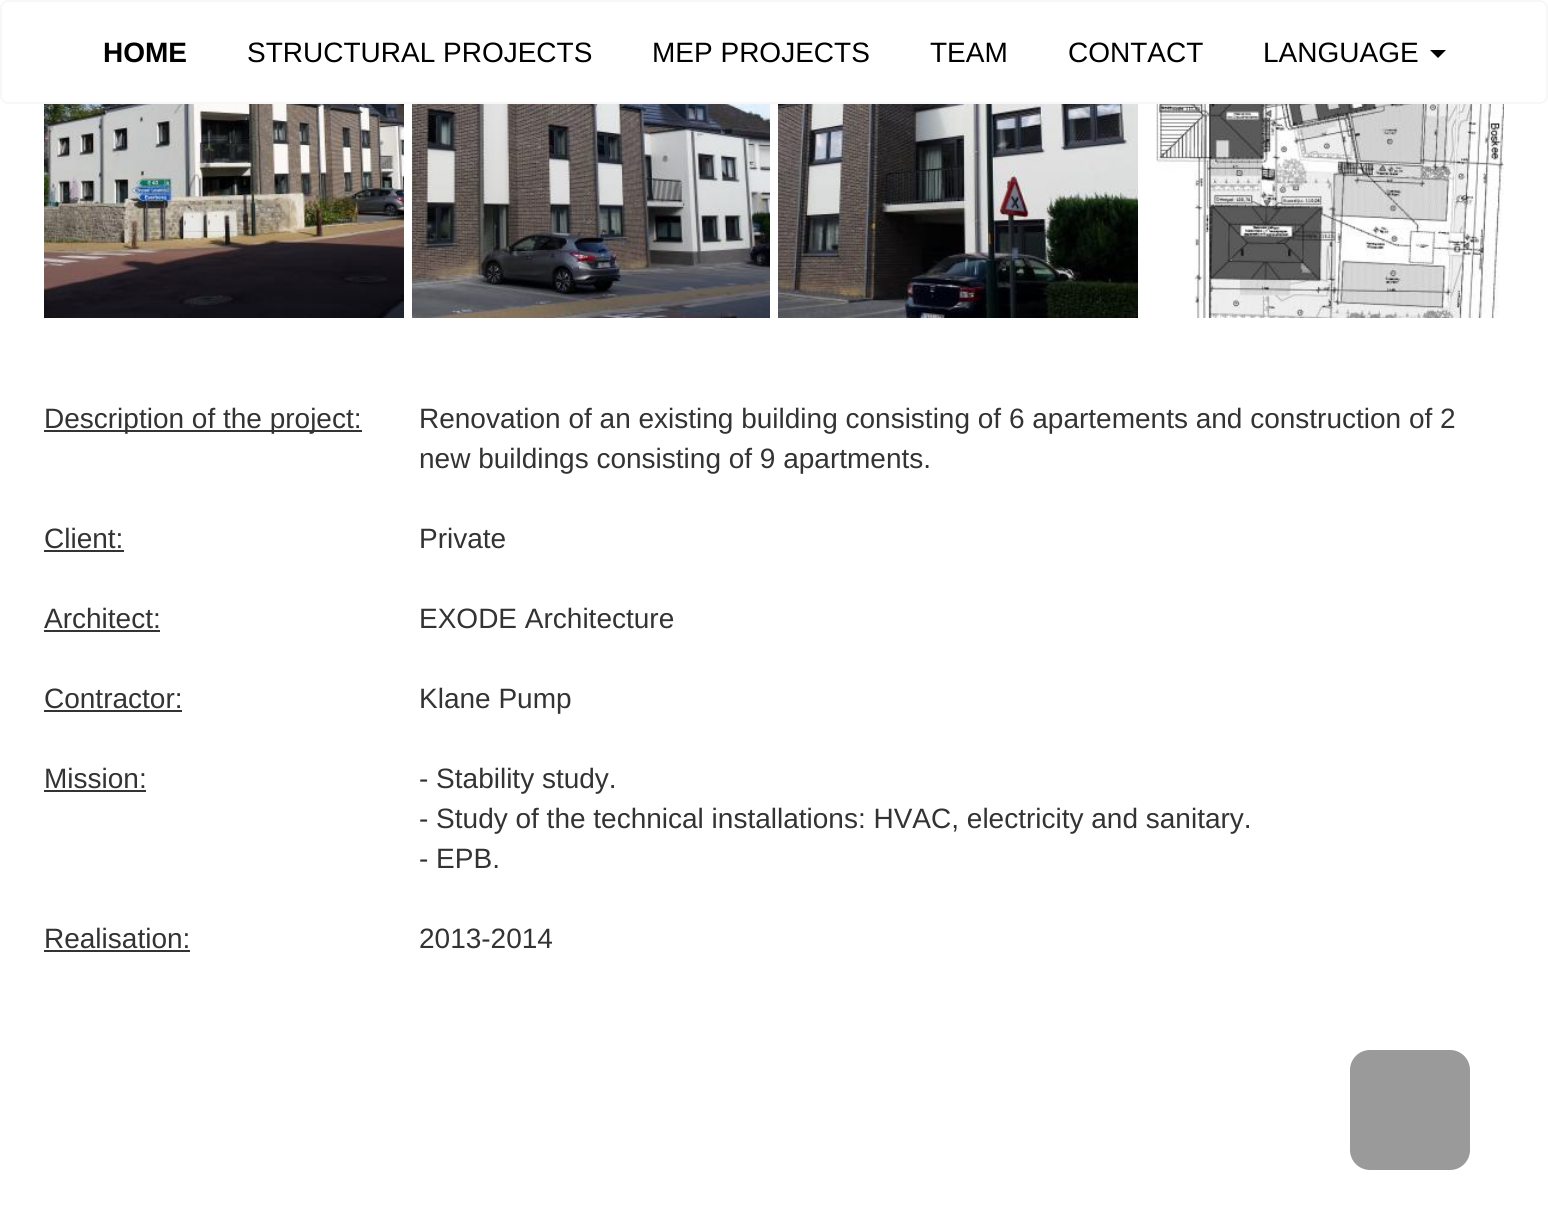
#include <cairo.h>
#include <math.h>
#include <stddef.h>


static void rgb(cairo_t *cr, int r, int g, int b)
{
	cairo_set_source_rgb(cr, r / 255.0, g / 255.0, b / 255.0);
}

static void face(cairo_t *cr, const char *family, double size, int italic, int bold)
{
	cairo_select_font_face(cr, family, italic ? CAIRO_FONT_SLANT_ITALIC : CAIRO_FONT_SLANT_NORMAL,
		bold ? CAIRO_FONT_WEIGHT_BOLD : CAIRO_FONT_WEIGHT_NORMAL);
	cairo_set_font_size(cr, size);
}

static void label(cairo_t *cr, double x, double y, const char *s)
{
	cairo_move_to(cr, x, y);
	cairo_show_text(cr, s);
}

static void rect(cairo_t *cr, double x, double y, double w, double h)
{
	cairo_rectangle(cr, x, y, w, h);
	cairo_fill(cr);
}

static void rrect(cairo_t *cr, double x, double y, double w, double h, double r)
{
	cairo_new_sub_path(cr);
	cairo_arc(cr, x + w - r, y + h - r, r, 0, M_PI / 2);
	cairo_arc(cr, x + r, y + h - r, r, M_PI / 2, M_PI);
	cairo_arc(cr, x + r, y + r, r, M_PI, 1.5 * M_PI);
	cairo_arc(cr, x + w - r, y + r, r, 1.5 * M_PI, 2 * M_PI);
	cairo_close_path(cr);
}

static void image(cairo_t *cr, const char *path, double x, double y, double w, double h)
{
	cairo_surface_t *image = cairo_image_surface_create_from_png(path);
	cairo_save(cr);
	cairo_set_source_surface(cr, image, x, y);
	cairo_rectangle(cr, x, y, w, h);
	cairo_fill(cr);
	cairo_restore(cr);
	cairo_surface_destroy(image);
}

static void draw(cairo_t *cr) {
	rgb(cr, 255, 255, 255);
	cairo_paint(cr);
	rrect(cr, 1, 1, 1546, 102, 7);
	rgb(cr, 247, 247, 247);
	cairo_stroke(cr);
	face(cr, "Liberation Sans", 28, 0, 1);
	rgb(cr, 0, 0, 0);
	label(cr, 103, 62, "HOME");
	face(cr, "Liberation Sans", 28, 0, 0);
	label(cr, 247, 62, "STRUCTURAL PROJECTS");
	label(cr, 652, 62, "MEP PROJECTS");
	label(cr, 930, 62, "TEAM");
	label(cr, 1068, 62, "CONTACT");
	label(cr, 1263, 62, "LANGUAGE");
	cairo_new_path(cr);
	cairo_move_to(cr, 1430, 50);
	cairo_line_to(cr, 1446, 50);
	cairo_line_to(cr, 1438, 58);
	cairo_close_path(cr);
	cairo_fill(cr);
	image(cr, "image0.png", 44, 104, 360, 214);
	image(cr, "image1.png", 412, 104, 358, 214);
	image(cr, "image2.png", 778, 104, 360, 214);
	image(cr, "image3.png", 1146, 104, 358, 214);
	rgb(cr, 51, 51, 51);
	rect(cr, 44, 430, 318, 2);
	label(cr, 44, 428, "Description of the project:");
	label(cr, 419, 428, "Renovation of an existing building consisting of 6 apartements and construction of 2");
	label(cr, 419, 468, "new buildings consisting of 9 apartments.");
	label(cr, 44, 548, "Client:");
	rect(cr, 44, 550, 80, 2);
	label(cr, 419, 548, "Private");
	label(cr, 44, 628, "Architect:");
	rect(cr, 44, 630, 116, 2);
	label(cr, 419, 628, "EXODE Architecture");
	label(cr, 44, 708, "Contractor:");
	rect(cr, 44, 710, 138, 2);
	label(cr, 419, 708, "Klane Pump");
	label(cr, 44, 788, "Mission:");
	rect(cr, 44, 790, 102, 2);
	label(cr, 419, 788, "- Stability study.");
	label(cr, 419, 828, "- Study of the technical installations: HVAC, electricity and sanitary.");
	label(cr, 419, 868, "- EPB.");
	label(cr, 44, 948, "Realisation:");
	rect(cr, 44, 950, 146, 2);
	label(cr, 419, 948, "2013-2014");
	rgb(cr, 154, 154, 154);
	rrect(cr, 1350, 1050, 120, 120, 20);
	cairo_fill(cr);
}

int main(void) {
	cairo_surface_t *surface = cairo_image_surface_create(CAIRO_FORMAT_RGB24, 1548, 1210);
	cairo_t *cr = cairo_create(surface);
	cairo_font_options_t *options = cairo_font_options_create();
	cairo_font_options_set_hint_metrics(options, CAIRO_HINT_METRICS_OFF);
	cairo_font_options_set_hint_style(options, CAIRO_HINT_STYLE_NONE);
	cairo_set_font_options(cr, options);
	cairo_set_miter_limit(cr, 4);
	draw(cr);
	cairo_surface_write_to_png(surface, "render.png");
	cairo_font_options_destroy(options);
	cairo_destroy(cr);
	cairo_surface_destroy(surface);
	return 0;
}
